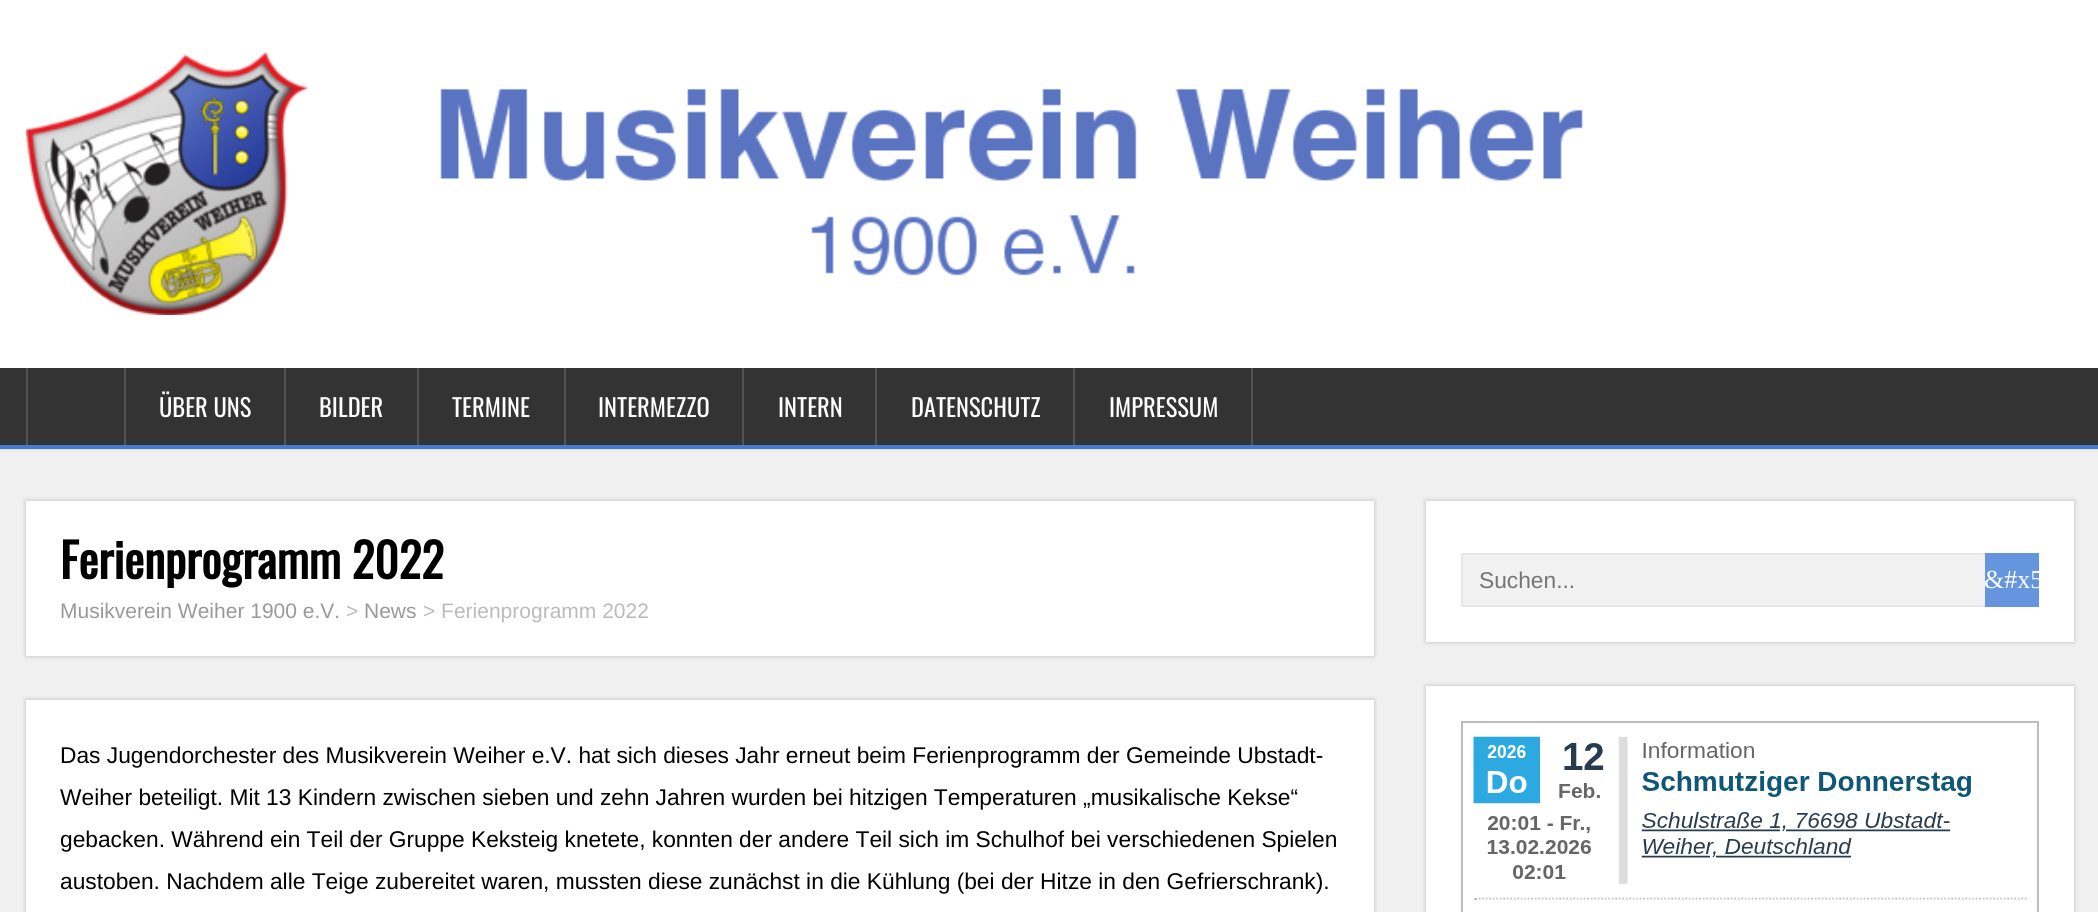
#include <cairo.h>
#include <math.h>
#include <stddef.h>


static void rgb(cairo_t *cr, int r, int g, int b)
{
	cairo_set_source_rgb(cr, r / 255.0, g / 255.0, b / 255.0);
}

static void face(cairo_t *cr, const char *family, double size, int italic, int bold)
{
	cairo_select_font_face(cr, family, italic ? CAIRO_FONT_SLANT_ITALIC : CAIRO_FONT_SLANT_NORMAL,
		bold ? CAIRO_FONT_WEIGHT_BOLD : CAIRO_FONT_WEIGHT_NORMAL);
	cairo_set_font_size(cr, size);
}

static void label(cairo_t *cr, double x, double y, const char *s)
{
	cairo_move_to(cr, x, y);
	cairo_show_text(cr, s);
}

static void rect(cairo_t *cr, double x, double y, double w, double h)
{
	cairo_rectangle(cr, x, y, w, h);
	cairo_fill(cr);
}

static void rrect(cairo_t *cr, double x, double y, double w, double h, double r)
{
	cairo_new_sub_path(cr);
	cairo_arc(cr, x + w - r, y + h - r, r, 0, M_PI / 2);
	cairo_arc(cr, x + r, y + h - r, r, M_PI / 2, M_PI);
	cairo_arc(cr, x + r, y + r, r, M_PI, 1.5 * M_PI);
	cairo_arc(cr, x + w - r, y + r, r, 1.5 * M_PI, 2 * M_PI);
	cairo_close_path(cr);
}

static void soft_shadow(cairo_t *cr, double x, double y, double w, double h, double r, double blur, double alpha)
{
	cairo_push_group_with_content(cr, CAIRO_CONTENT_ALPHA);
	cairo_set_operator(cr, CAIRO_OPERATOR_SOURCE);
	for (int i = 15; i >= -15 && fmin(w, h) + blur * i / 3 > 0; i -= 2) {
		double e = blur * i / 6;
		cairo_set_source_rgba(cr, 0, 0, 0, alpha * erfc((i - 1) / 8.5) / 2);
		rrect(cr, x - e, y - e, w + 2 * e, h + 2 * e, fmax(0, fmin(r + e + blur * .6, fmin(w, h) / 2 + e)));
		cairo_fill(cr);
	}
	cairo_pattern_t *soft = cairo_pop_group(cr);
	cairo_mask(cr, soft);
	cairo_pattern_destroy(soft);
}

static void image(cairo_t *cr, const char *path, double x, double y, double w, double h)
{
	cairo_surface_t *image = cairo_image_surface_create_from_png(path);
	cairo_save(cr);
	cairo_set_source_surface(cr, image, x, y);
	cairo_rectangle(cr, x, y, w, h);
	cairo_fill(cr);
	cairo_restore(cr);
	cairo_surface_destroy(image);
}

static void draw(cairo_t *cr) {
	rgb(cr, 241, 241, 241);
	cairo_paint(cr);
	rgb(cr, 187, 187, 187);
	soft_shadow(cr, 0, 0, 2098, 448, 0, 2.5, 1);
	rgb(cr, 255, 255, 255);
	rect(cr, 0, 0, 2098, 368);
	image(cr, "image0.png", 26, 52, 1557, 263);
	rgb(cr, 51, 51, 51);
	rect(cr, 0, 368, 2098, 77);
	rgb(cr, 67, 123, 208);
	rect(cr, 0, 445, 2098, 4);
	rgb(cr, 83, 83, 83);
	rect(cr, 124, 368, 2, 77);
	rect(cr, 26, 368, 2, 77);
	rect(cr, 284, 368, 2, 77);
	face(cr, "Oswald", 24.5, 0, 0);
	rgb(cr, 255, 255, 255);
	label(cr, 159, 417, "ÜBER UNS");
	rgb(cr, 83, 83, 83);
	rect(cr, 417, 368, 2, 77);
	rgb(cr, 255, 255, 255);
	label(cr, 319, 417, "BILDER");
	rgb(cr, 83, 83, 83);
	rect(cr, 564, 368, 2, 77);
	rgb(cr, 255, 255, 255);
	label(cr, 452, 417, "TERMINE");
	rgb(cr, 83, 83, 83);
	rect(cr, 742, 368, 2, 77);
	rgb(cr, 255, 255, 255);
	label(cr, 598, 417, "INTERMEZZO");
	rgb(cr, 83, 83, 83);
	rect(cr, 875, 368, 2, 77);
	rgb(cr, 255, 255, 255);
	label(cr, 778, 417, "INTERN");
	rgb(cr, 83, 83, 83);
	rect(cr, 1073, 368, 2, 77);
	rgb(cr, 255, 255, 255);
	label(cr, 911, 417, "DATENSCHUTZ");
	rgb(cr, 83, 83, 83);
	rect(cr, 1251, 368, 2, 77);
	rgb(cr, 255, 255, 255);
	label(cr, 1109, 417, "IMPRESSUM");
	rgb(cr, 187, 187, 187);
	soft_shadow(cr, 26, 501, 1348, 155, 0, 2.5, 1);
	rgb(cr, 255, 255, 255);
	rect(cr, 26, 501, 1348, 155);
	face(cr, "Oswald", 47.25, 0, 1);
	rgb(cr, 0, 0, 0);
	label(cr, 60, 579, "Ferienprogramm 2022");
	face(cr, "Liberation Sans", 21, 0, 0);
	rgb(cr, 153, 153, 153);
	label(cr, 60, 618, "Musikverein Weiher 1900 e.V.");
	rgb(cr, 187, 187, 187);
	label(cr, 346, 618, ">");
	rgb(cr, 153, 153, 153);
	label(cr, 364, 618, "News");
	rgb(cr, 187, 187, 187);
	label(cr, 423, 618, "> Ferienprogramm 2022");
	rgb(cr, 187, 187, 187);
	soft_shadow(cr, 26, 700, 1348, 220, 0, 2.5, 1);
	rgb(cr, 255, 255, 255);
	rect(cr, 26, 700, 1348, 212);
	face(cr, "Liberation Sans", 22.75, 0, 0);
	rgb(cr, 0, 0, 0);
	label(cr, 60, 763, "Das Jugendorchester des Musikverein Weiher e.V. hat sich dieses Jahr erneut beim Ferienprogramm der Gemeinde Ubstadt-");
	label(cr, 60, 805, "Weiher beteiligt. Mit 13 Kindern zwischen sieben und zehn Jahren wurden bei hitzigen Temperaturen „musikalische Kekse“");
	label(cr, 60, 847, "gebacken. Während ein Teil der Gruppe Keksteig knetete, konnten der andere Teil sich im Schulhof bei verschiedenen Spielen");
	label(cr, 60, 889, "austoben. Nachdem alle Teige zubereitet waren, mussten diese zunächst in die Kühlung (bei der Hitze in den Gefrierschrank).");
	rgb(cr, 187, 187, 187);
	soft_shadow(cr, 1426, 501, 648, 141, 0, 2.5, 1);
	rgb(cr, 255, 255, 255);
	rect(cr, 1426, 501, 648, 141);
	rgb(cr, 242, 242, 242);
	rect(cr, 1463, 555, 522, 50);
	cairo_rectangle(cr, 1462, 554, 572, 52);
	rgb(cr, 230, 230, 230);
	cairo_stroke(cr);
	rgb(cr, 117, 117, 117);
	label(cr, 1479, 588, "Suchen...");
	rgb(cr, 101, 150, 221);
	rect(cr, 1985, 553, 54, 54);
	cairo_save(cr);
	cairo_rectangle(cr, 1985, 553, 54, 54);
	cairo_clip(cr);
	face(cr, "Liberation Serif", 26, 0, 0);
	rgb(cr, 255, 255, 255);
	label(cr, 1984, 588, "&#x5");
	cairo_restore(cr);
	rgb(cr, 187, 187, 187);
	soft_shadow(cr, 1426, 686, 648, 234, 0, 2.5, 1);
	rgb(cr, 255, 255, 255);
	rect(cr, 1426, 686, 648, 226);
	cairo_rectangle(cr, 1462, 722, 576, 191);
	rgb(cr, 187, 187, 187);
	cairo_stroke(cr);
	image(cr, "image1.png", 1463, 722, 574, 178);
}

int main(void) {
	cairo_surface_t *surface = cairo_image_surface_create(CAIRO_FORMAT_RGB24, 2098, 912);
	cairo_t *cr = cairo_create(surface);
	cairo_font_options_t *options = cairo_font_options_create();
	cairo_font_options_set_hint_metrics(options, CAIRO_HINT_METRICS_OFF);
	cairo_font_options_set_hint_style(options, CAIRO_HINT_STYLE_NONE);
	cairo_set_font_options(cr, options);
	cairo_set_miter_limit(cr, 4);
	draw(cr);
	cairo_surface_write_to_png(surface, "render.png");
	cairo_font_options_destroy(options);
	cairo_destroy(cr);
	cairo_surface_destroy(surface);
	return 0;
}
